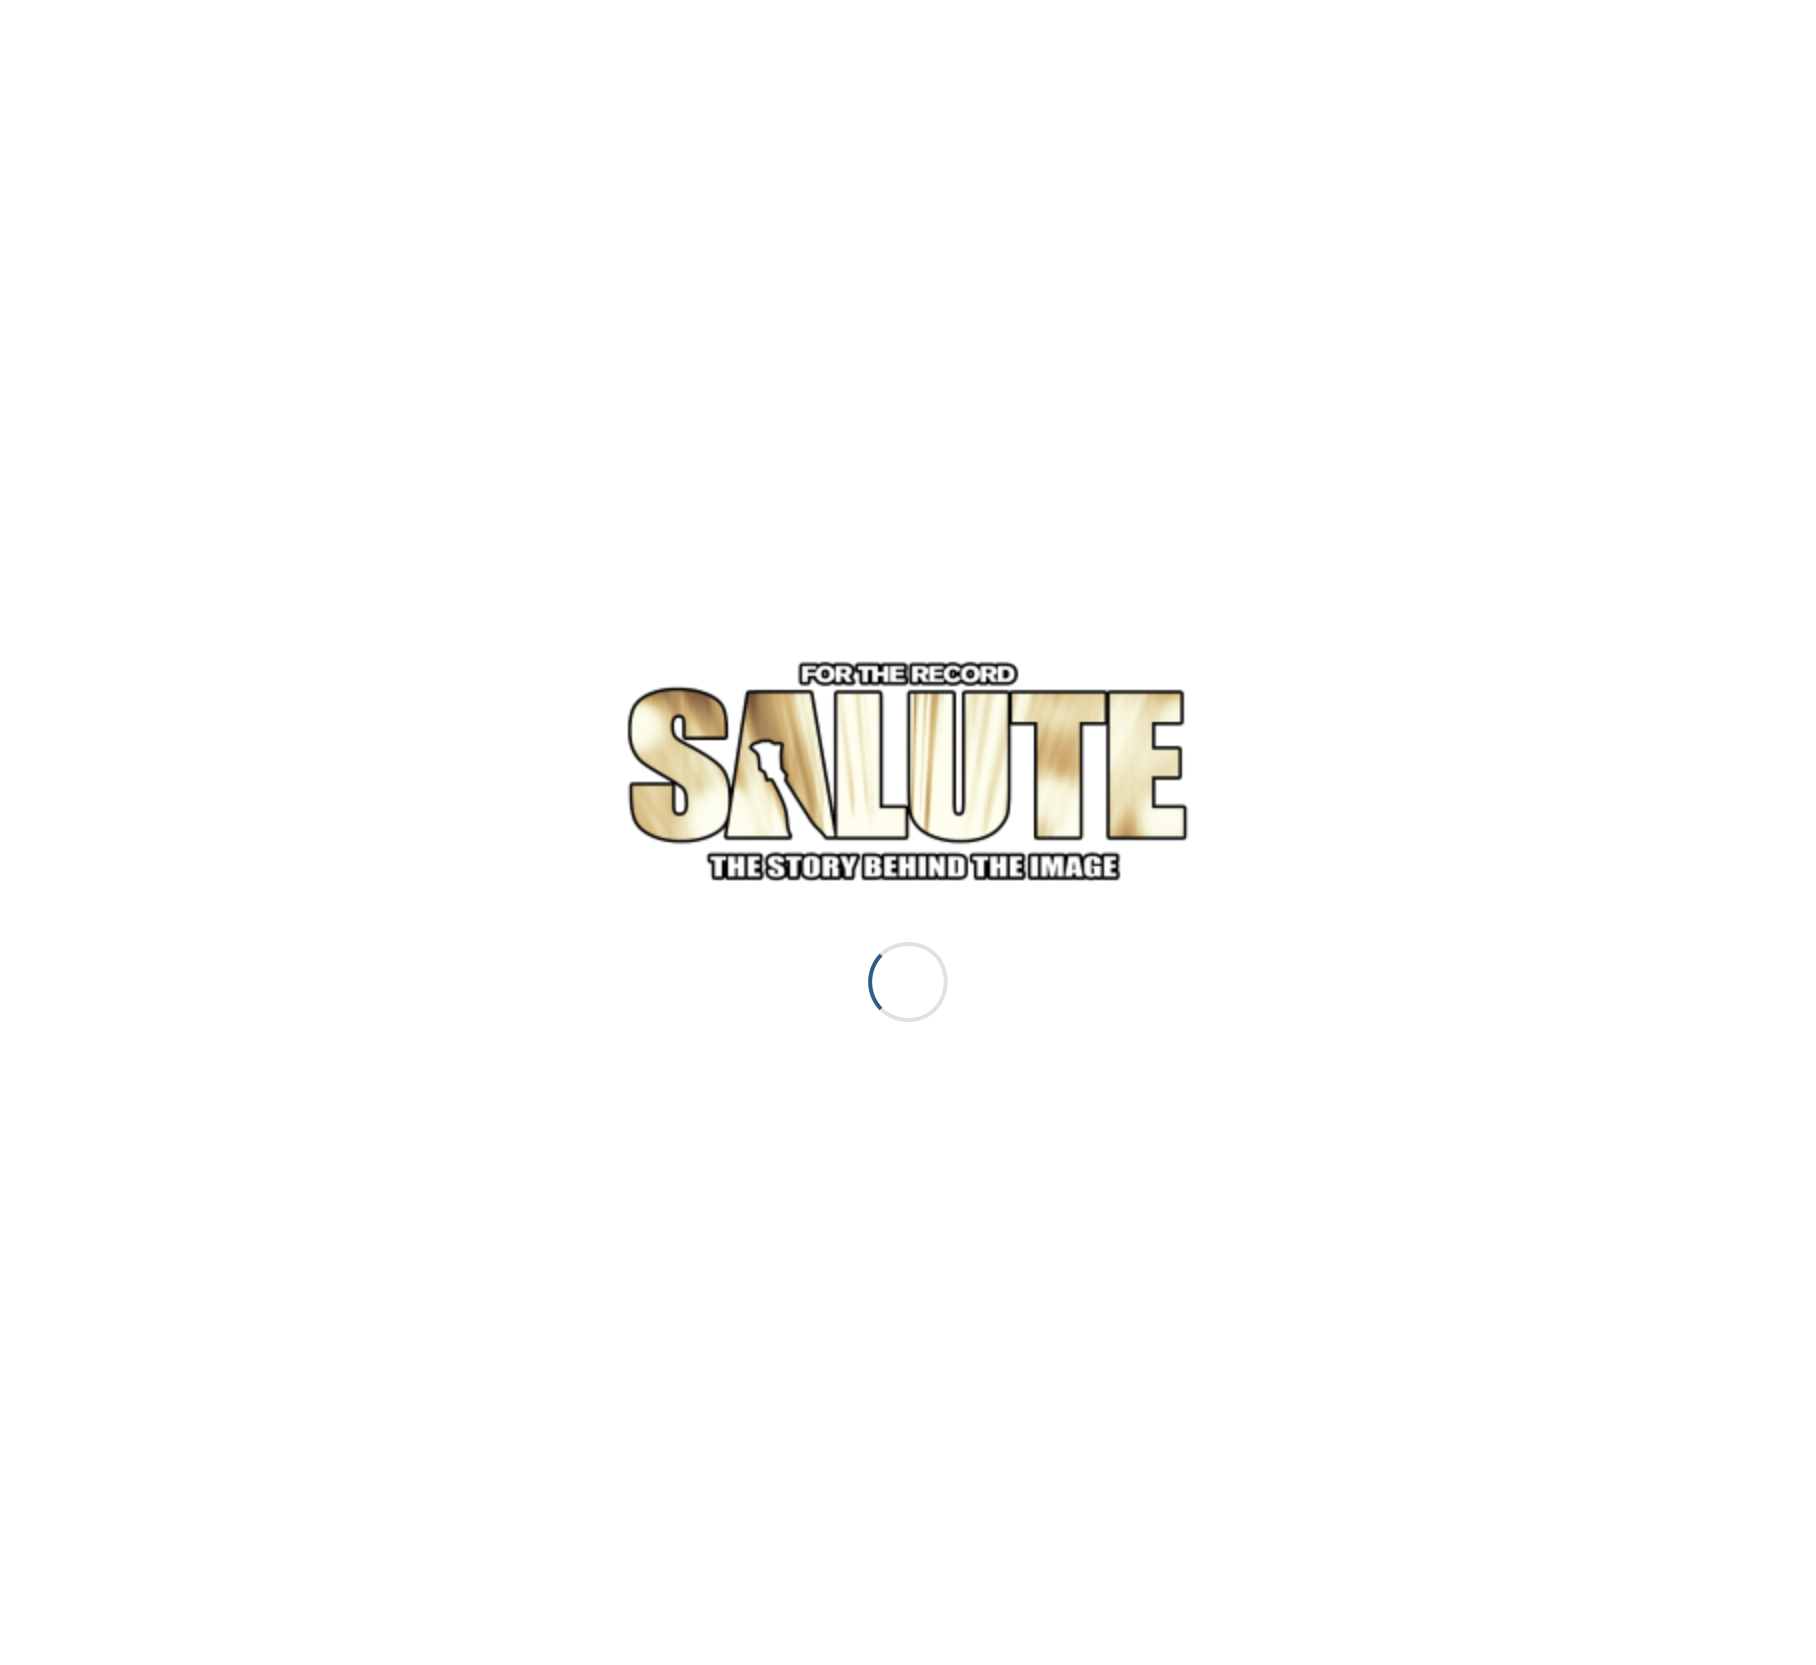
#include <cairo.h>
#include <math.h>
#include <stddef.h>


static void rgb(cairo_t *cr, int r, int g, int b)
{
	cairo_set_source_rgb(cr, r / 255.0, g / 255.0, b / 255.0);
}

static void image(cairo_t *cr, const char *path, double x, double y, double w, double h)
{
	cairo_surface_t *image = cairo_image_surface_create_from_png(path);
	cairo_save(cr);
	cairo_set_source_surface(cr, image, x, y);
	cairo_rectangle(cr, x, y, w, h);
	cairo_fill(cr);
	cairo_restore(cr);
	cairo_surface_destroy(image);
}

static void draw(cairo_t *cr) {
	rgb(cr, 255, 255, 255);
	cairo_paint(cr);
	image(cr, "image0.png", 627, 661, 562, 222);
	cairo_new_path(cr);
	cairo_move_to(cr, 881, 955);
	cairo_curve_to(cr, 890, 946, 903, 942.5, 915.5, 944.5);
	cairo_curve_to(cr, 960, 953.5, 953.5, 1020, 908, 1020);
	cairo_curve_to(cr, 898, 1020, 888, 1016, 881, 1009);
	rgb(cr, 225, 225, 225);
	cairo_set_line_width(cr, 4);
	cairo_stroke(cr);
	cairo_new_path(cr);
	cairo_move_to(cr, 881, 1009);
	cairo_curve_to(cr, 866.5, 994, 866.5, 970, 881, 955);
	rgb(cr, 45, 92, 136);
	cairo_stroke(cr);
}

int main(void) {
	cairo_surface_t *surface = cairo_image_surface_create(CAIRO_FORMAT_RGB24, 1816, 1665);
	cairo_t *cr = cairo_create(surface);
	cairo_font_options_t *options = cairo_font_options_create();
	cairo_font_options_set_hint_metrics(options, CAIRO_HINT_METRICS_OFF);
	cairo_font_options_set_hint_style(options, CAIRO_HINT_STYLE_NONE);
	cairo_set_font_options(cr, options);
	cairo_set_miter_limit(cr, 4);
	draw(cr);
	cairo_surface_write_to_png(surface, "render.png");
	cairo_font_options_destroy(options);
	cairo_destroy(cr);
	cairo_surface_destroy(surface);
	return 0;
}
